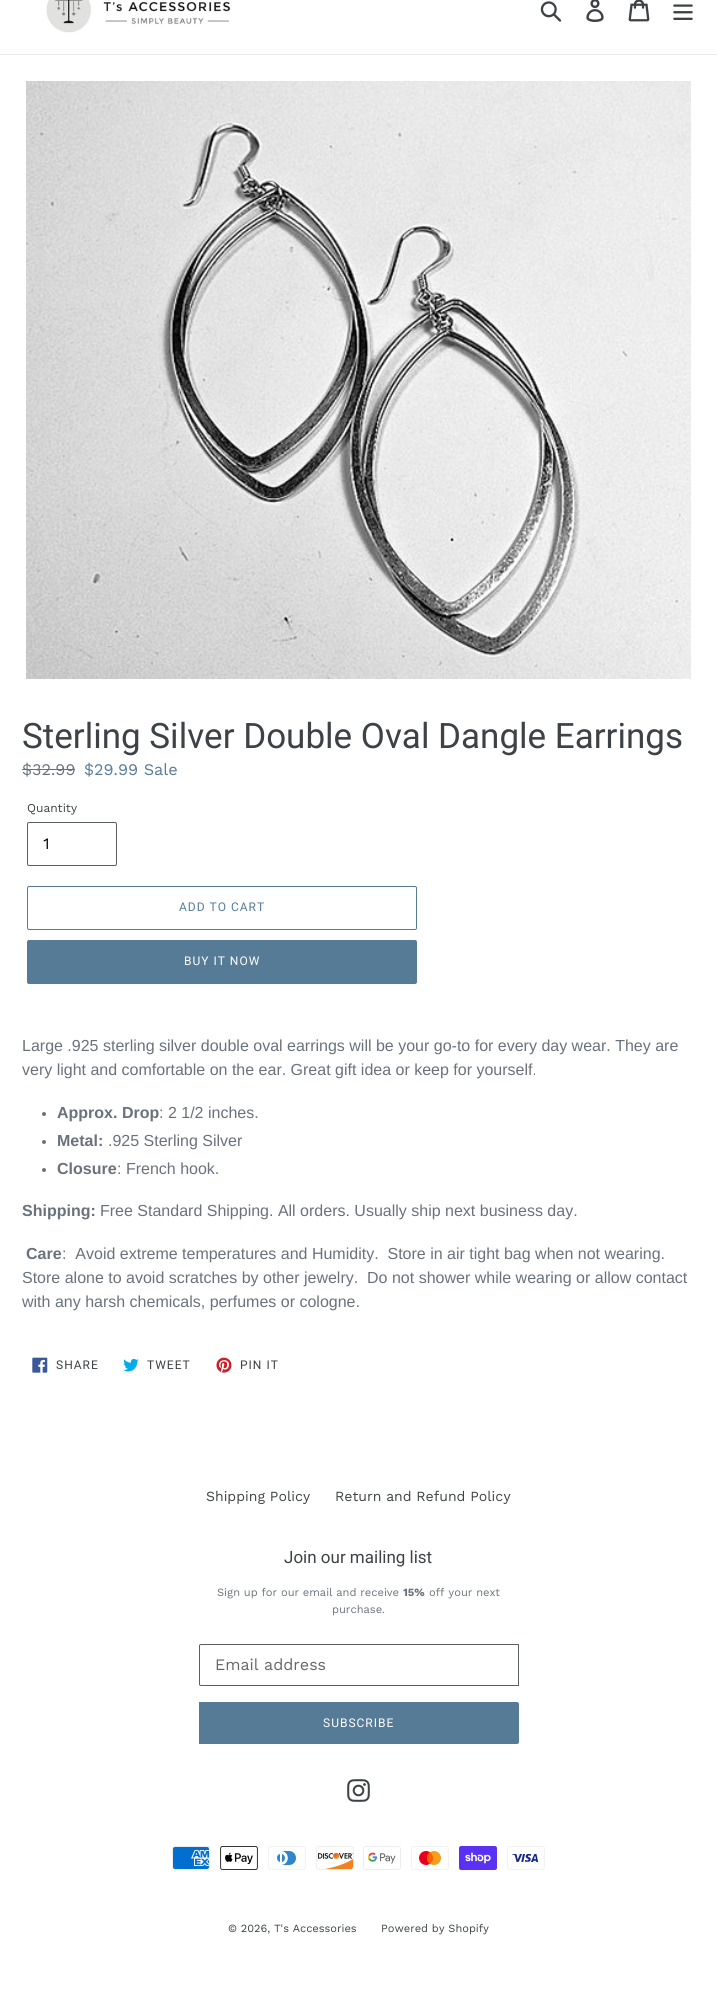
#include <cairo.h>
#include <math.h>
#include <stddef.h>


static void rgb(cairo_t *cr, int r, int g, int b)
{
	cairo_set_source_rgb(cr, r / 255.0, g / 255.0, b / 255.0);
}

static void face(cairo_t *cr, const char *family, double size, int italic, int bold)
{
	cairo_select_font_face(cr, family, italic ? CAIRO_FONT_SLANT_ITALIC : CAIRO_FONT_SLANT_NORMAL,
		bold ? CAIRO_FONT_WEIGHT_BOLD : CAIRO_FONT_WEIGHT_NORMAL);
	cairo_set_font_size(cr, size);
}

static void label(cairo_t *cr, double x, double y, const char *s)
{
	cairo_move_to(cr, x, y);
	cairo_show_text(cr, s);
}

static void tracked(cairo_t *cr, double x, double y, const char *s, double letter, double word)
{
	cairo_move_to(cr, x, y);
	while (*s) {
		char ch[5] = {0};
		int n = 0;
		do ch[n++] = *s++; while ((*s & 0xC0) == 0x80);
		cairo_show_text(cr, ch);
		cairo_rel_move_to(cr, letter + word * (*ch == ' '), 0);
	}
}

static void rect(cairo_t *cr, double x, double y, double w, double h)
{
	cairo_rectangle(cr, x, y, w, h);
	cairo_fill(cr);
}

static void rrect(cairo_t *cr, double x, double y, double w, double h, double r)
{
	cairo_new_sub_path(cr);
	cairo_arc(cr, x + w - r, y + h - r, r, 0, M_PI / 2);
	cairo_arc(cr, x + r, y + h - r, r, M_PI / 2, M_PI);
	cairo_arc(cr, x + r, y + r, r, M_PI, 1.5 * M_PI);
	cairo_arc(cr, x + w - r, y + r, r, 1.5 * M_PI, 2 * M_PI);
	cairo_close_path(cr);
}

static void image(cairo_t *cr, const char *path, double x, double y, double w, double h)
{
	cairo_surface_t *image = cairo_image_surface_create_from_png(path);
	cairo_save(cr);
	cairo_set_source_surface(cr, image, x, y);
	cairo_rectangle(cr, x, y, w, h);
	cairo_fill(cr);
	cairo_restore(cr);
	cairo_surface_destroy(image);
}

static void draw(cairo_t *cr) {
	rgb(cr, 255, 255, 255);
	cairo_paint(cr);
	rgb(cr, 232, 233, 235);
	rect(cr, 0, 54, 717, 1);
	image(cr, "image0.png", 45, 0, 186, 33);
	image(cr, "image1.png", 540, 1, 22, 21);
	image(cr, "image2.png", 586, 0, 18, 22);
	image(cr, "image3.png", 628, 0, 22, 22);
	image(cr, "image4.png", 673, 4, 20, 16);
	image(cr, "image5.png", 26, 81, 665, 598);
	face(cr, "Roboto", 35, 0, 0);
	rgb(cr, 61, 66, 70);
	label(cr, 22, 748, "Sterling Silver Double Oval Dangle Earrings");
	face(cr, "Work Sans", 16.25, 0, 0);
	rgb(cr, 105, 114, 123);
	label(cr, 22, 775, "$32.99");
	rect(cr, 22, 769, 53, 1);
	rgb(cr, 85, 123, 151);
	label(cr, 84, 775, "$29.99 Sale");
	face(cr, "Work Sans", 12, 0, 0);
	rgb(cr, 61, 66, 70);
	label(cr, 27, 812, "Quantity");
	rrect(cr, 27.5, 822.5, 89, 43, 1.5);
	rgb(cr, 90, 94, 98);
	cairo_set_line_width(cr, 1);
	cairo_stroke(cr);
	face(cr, "Work Sans", 16, 0, 0);
	rgb(cr, 0, 0, 0);
	label(cr, 43, 849, "1");
	rrect(cr, 27.5, 886.5, 389, 43, 1.5);
	rgb(cr, 85, 123, 151);
	cairo_stroke(cr);
	face(cr, "Roboto", 12, 0, 0);
	tracked(cr, 179, 911, "ADD TO CART", 1, 0);
	rrect(cr, 27, 940, 390, 44, 2);
	cairo_fill(cr);
	rgb(cr, 255, 255, 255);
	tracked(cr, 184, 965, "BUY IT NOW", 1, 0);
	face(cr, "Liberation Sans", 16, 0, 0);
	rgb(cr, 105, 114, 123);
	label(cr, 22, 1051, "Large .925 sterling silver double oval earrings will be your go-to for every day wear. They are");
	label(cr, 22, 1075, "very light and comfortable on the ear. Great gift idea or keep for yourself.");
	cairo_new_path(cr);
	cairo_arc(cr, 44, 1114, 2, 0, 2 * M_PI);
	cairo_fill(cr);
	face(cr, "Liberation Sans", 16, 0, 1);
	label(cr, 57, 1118, "Approx. Drop");
	face(cr, "Liberation Sans", 16, 0, 0);
	label(cr, 159, 1118, ": 2 1/2 inches.");
	cairo_new_path(cr);
	cairo_arc(cr, 44, 1142, 2, 0, 2 * M_PI);
	cairo_fill(cr);
	face(cr, "Liberation Sans", 16, 0, 1);
	label(cr, 57, 1146, "Metal:");
	face(cr, "Liberation Sans", 16, 0, 0);
	label(cr, 108, 1146, ".925 Sterling Silver");
	cairo_new_path(cr);
	cairo_arc(cr, 44, 1170, 2, 0, 2 * M_PI);
	cairo_fill(cr);
	face(cr, "Liberation Sans", 16, 0, 1);
	label(cr, 57, 1174, "Closure");
	face(cr, "Liberation Sans", 16, 0, 0);
	label(cr, 117, 1174, ": French hook.");
	face(cr, "Liberation Sans", 16, 0, 1);
	label(cr, 22, 1216, "Shipping:");
	face(cr, "Liberation Sans", 16, 0, 0);
	label(cr, 100, 1216, "Free Standard Shipping. All orders. Usually ship next business day.");
	face(cr, "Liberation Sans", 16, 0, 1);
	label(cr, 26, 1259, "Care");
	face(cr, "Liberation Sans", 16, 0, 0);
	label(cr, 62, 1259, ":  Avoid extreme temperatures and Humidity.  Store in air tight bag when not wearing.");
	label(cr, 22, 1283, "Store alone to avoid scratches by other jewelry.  Do not shower while wearing or allow contact");
	label(cr, 22, 1307, "with any harsh chemicals, perfumes or cologne.");
	image(cr, "image6.png", 32, 1357, 16, 16);
	face(cr, "Roboto", 12, 0, 0);
	rgb(cr, 61, 66, 70);
	tracked(cr, 56, 1369, "SHARE", 1, 0);
	image(cr, "image7.png", 123, 1358, 16, 14);
	tracked(cr, 147, 1369, "TWEET", 1, 0);
	image(cr, "image8.png", 216, 1357, 16, 16);
	tracked(cr, 240, 1369, "PIN IT", 1, 0);
	face(cr, "Work Sans", 14, 0, 0);
	label(cr, 206, 1501, "Shipping Policy");
	label(cr, 335, 1501, "Return and Refund Policy");
	face(cr, "Roboto", 17, 0, 0);
	label(cr, 284, 1563, "Join our mailing list");
	face(cr, "Work Sans", 11.1, 0, 0);
	rgb(cr, 105, 114, 123);
	label(cr, 217, 1596, "Sign up for our email and receive");
	face(cr, "Work Sans", 11.1, 0, 1);
	label(cr, 403, 1596, "15%");
	face(cr, "Work Sans", 11.1, 0, 0);
	label(cr, 429, 1596, "off your next");
	label(cr, 332, 1613, "purchase.");
	cairo_new_path(cr);
	cairo_move_to(cr, 201, 1644.5);
	cairo_line_to(cr, 518.5, 1644.5);
	cairo_line_to(cr, 518.5, 1685.5);
	cairo_line_to(cr, 201, 1685.5);
	cairo_curve_to(cr, 200, 1685.5, 199.5, 1685, 199.5, 1684);
	cairo_line_to(cr, 199.5, 1646);
	cairo_curve_to(cr, 199.5, 1645, 200, 1644.5, 201, 1644.5);
	cairo_close_path(cr);
	rgb(cr, 90, 94, 98);
	cairo_stroke(cr);
	face(cr, "Work Sans", 16, 0, 0);
	rgb(cr, 102, 102, 102);
	label(cr, 215, 1670, "Email address");
	rgb(cr, 85, 123, 151);
	cairo_new_path(cr);
	cairo_move_to(cr, 199, 1702);
	cairo_line_to(cr, 517, 1702);
	cairo_curve_to(cr, 518, 1702, 519, 1703, 519, 1704);
	cairo_line_to(cr, 519, 1742);
	cairo_curve_to(cr, 519, 1743, 518, 1744, 517, 1744);
	cairo_line_to(cr, 199, 1744);
	cairo_close_path(cr);
	cairo_fill(cr);
	face(cr, "Roboto", 12, 0, 0);
	rgb(cr, 255, 255, 255);
	tracked(cr, 323, 1727, "SUBSCRIBE", 1, 0);
	image(cr, "image9.png", 347, 1779, 23, 23);
	image(cr, "image10.png", 172, 1846, 38, 24);
	image(cr, "image11.png", 220, 1846, 38, 24);
	image(cr, "image12.png", 268, 1846, 38, 24);
	image(cr, "image13.png", 316, 1846, 38, 24);
	image(cr, "image14.png", 363, 1846, 38, 24);
	image(cr, "image15.png", 411, 1846, 38, 24);
	image(cr, "image16.png", 459, 1846, 38, 24);
	image(cr, "image17.png", 507, 1846, 38, 24);
	face(cr, "Work Sans", 11, 0, 0);
	rgb(cr, 61, 66, 70);
	label(cr, 228, 1932, "© 2026, T's Accessories");
	label(cr, 381, 1932, "Powered by Shopify");
}

int main(void) {
	cairo_surface_t *surface = cairo_image_surface_create(CAIRO_FORMAT_RGB24, 717, 1993);
	cairo_t *cr = cairo_create(surface);
	cairo_font_options_t *options = cairo_font_options_create();
	cairo_font_options_set_hint_metrics(options, CAIRO_HINT_METRICS_OFF);
	cairo_font_options_set_hint_style(options, CAIRO_HINT_STYLE_NONE);
	cairo_set_font_options(cr, options);
	cairo_set_miter_limit(cr, 4);
	draw(cr);
	cairo_surface_write_to_png(surface, "render.png");
	cairo_font_options_destroy(options);
	cairo_destroy(cr);
	cairo_surface_destroy(surface);
	return 0;
}
